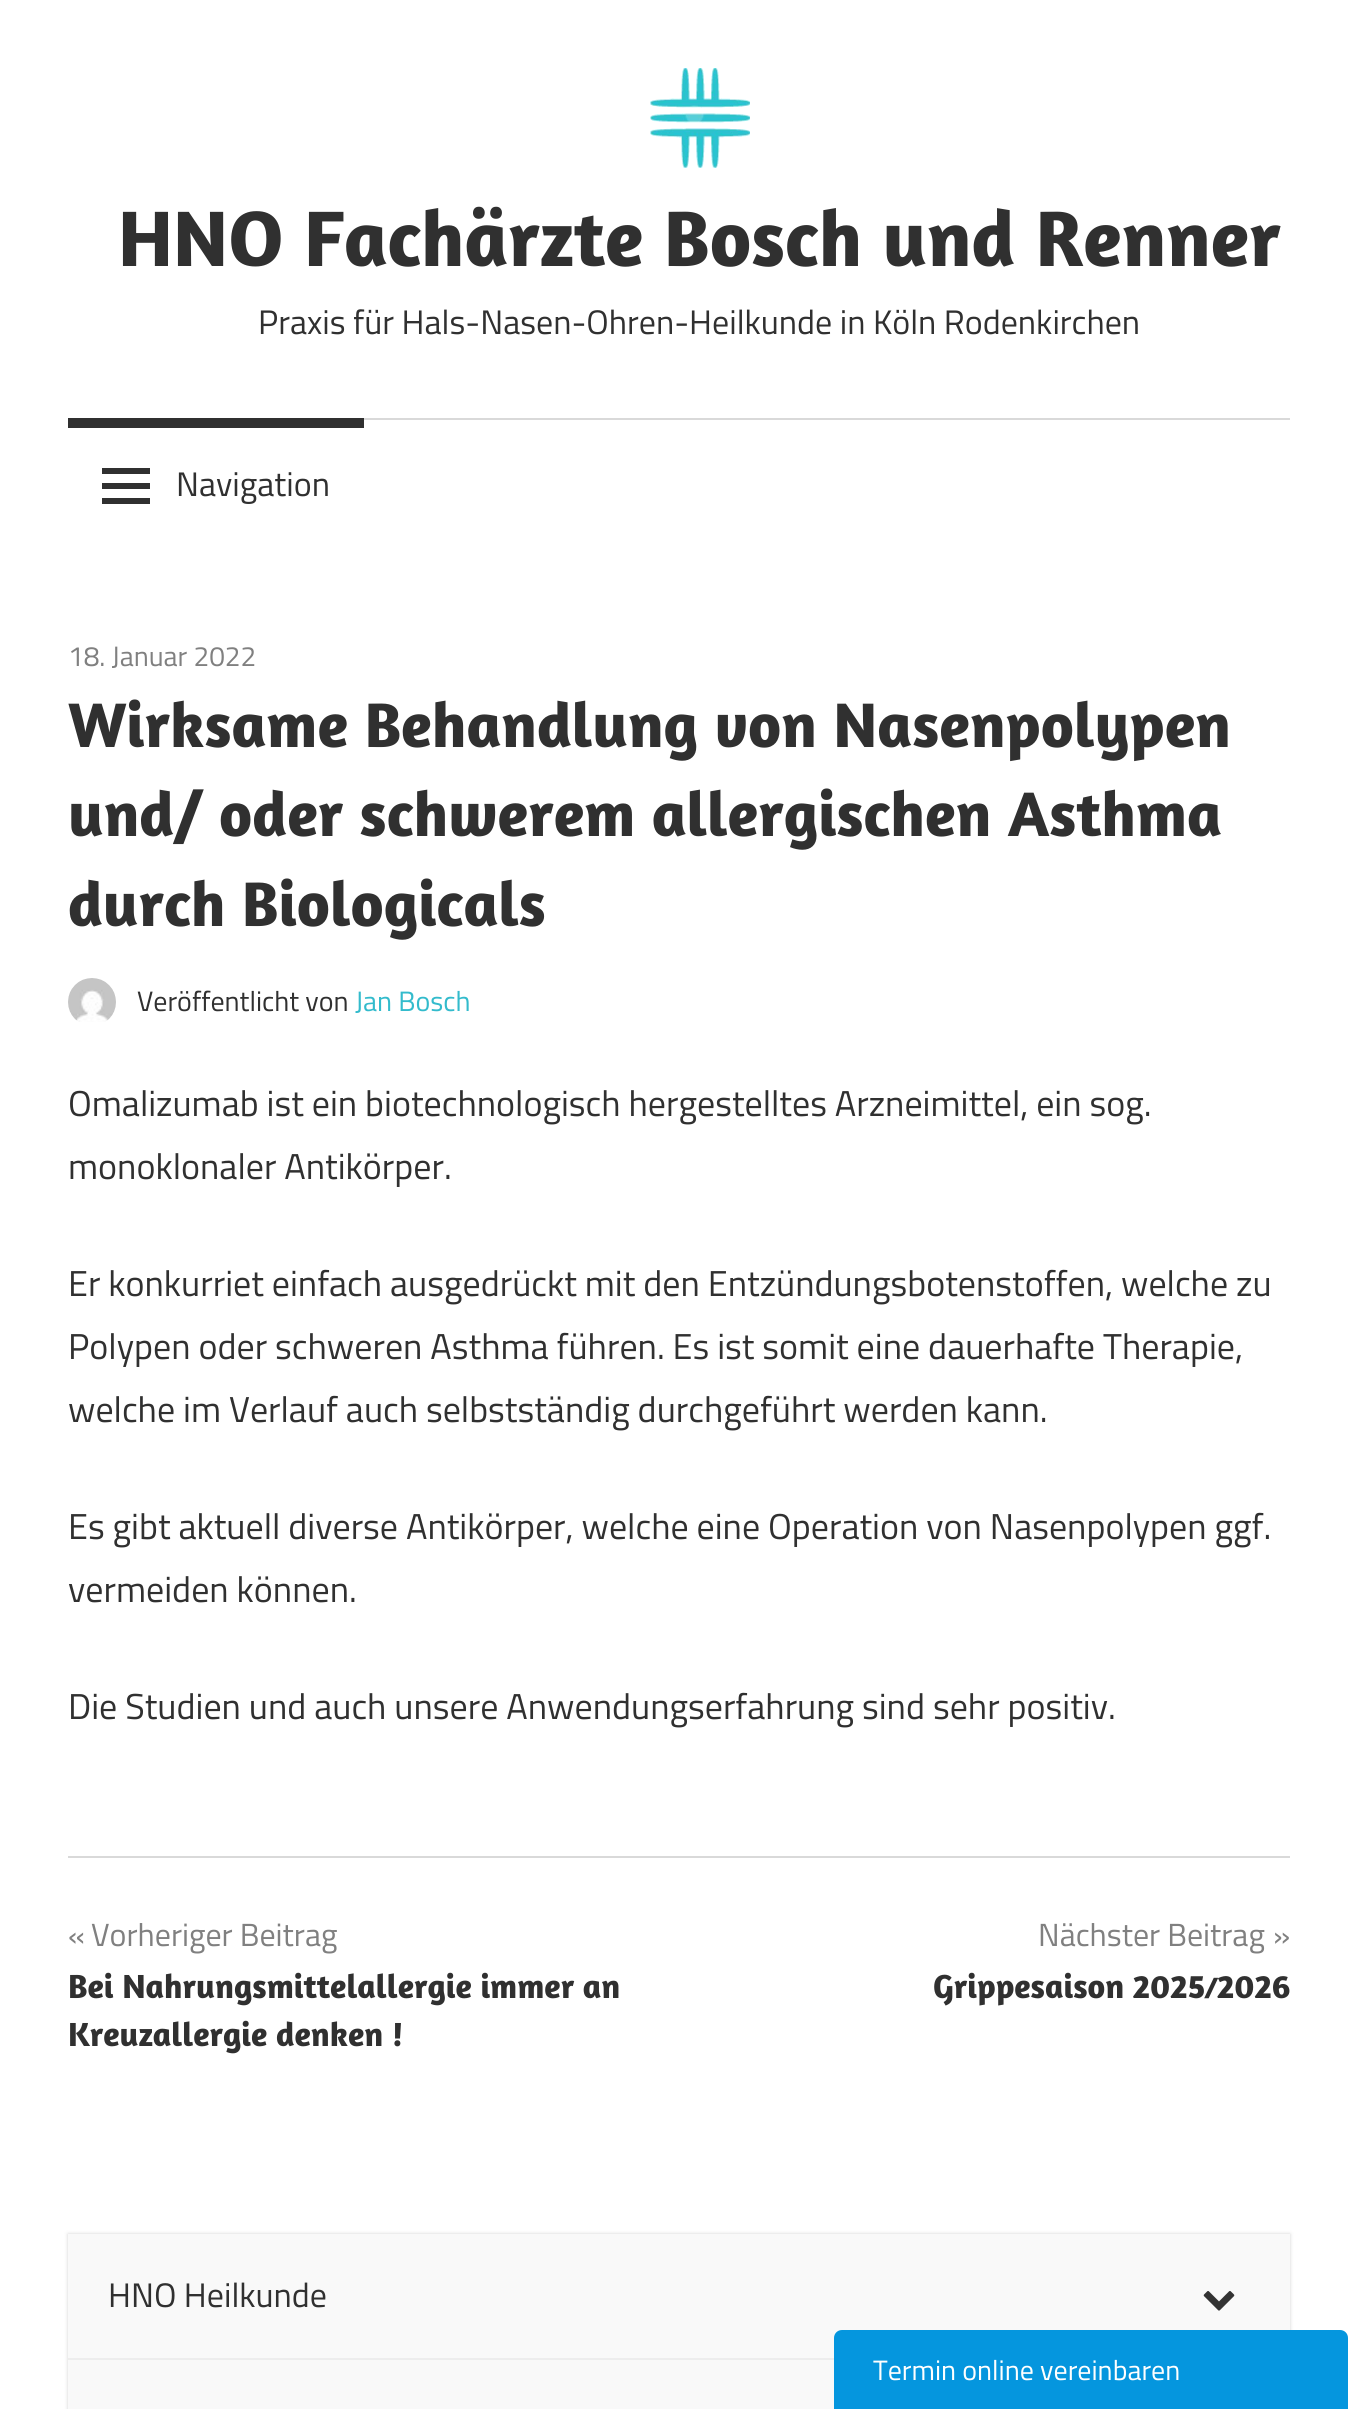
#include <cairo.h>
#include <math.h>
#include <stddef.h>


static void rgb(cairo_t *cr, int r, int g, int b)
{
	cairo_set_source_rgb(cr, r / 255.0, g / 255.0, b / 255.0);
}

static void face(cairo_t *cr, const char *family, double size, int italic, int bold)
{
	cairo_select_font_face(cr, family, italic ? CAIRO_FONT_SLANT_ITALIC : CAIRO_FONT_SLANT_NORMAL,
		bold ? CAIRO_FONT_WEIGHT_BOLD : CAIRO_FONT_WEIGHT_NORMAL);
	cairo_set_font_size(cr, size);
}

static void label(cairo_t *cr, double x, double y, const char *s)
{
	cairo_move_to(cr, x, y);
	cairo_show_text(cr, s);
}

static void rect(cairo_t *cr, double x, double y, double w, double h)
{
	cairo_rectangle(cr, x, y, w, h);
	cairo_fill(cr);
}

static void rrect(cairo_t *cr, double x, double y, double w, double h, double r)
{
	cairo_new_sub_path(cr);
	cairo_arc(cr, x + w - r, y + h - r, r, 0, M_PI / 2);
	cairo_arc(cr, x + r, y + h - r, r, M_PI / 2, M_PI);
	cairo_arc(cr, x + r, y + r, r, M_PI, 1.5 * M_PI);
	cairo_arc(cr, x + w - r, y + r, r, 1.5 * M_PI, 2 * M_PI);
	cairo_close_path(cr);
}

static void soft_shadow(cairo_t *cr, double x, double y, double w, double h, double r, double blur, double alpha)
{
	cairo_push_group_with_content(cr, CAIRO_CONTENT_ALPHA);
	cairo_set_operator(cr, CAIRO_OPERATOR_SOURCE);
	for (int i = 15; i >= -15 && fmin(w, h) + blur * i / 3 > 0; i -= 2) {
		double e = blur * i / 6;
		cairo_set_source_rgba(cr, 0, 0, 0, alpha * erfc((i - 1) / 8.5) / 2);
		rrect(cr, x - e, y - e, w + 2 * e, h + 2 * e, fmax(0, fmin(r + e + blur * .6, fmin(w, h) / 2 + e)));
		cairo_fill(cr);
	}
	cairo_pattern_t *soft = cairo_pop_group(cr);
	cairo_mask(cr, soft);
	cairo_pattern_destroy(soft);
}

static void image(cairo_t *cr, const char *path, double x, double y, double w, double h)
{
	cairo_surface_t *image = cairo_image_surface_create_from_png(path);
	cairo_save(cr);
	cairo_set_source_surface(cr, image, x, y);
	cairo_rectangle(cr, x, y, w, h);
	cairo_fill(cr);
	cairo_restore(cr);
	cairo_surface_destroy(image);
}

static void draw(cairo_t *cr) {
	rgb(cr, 255, 255, 255);
	cairo_paint(cr);
	image(cr, "image0.png", 650, 68, 100, 100);
	face(cr, "Amaranth", 80, 0, 1);
	rgb(cr, 48, 48, 48);
	label(cr, 118, 266, "HNO Fachärzte Bosch und Renner");
	face(cr, "Titillium Web", 34, 0, 0);
	label(cr, 258, 334, "Praxis für Hals-Nasen-Ohren-Heilkunde in Köln Rodenkirchen");
	rgb(cr, 217, 217, 217);
	rect(cr, 364, 418, 926, 2);
	rgb(cr, 48, 48, 48);
	rect(cr, 68, 418, 296, 10);
	image(cr, "image1.png", 102, 468, 48, 36);
	label(cr, 176, 496, "Navigation");
	face(cr, "Titillium Web", 28, 0, 0);
	rgb(cr, 128, 128, 128);
	label(cr, 68, 666, "18. Januar 2022");
	face(cr, "Amaranth", 64, 0, 1);
	rgb(cr, 48, 48, 48);
	label(cr, 68, 747, "Wirksame Behandlung von Nasenpolypen");
	label(cr, 68, 836, "und/ oder schwerem allergischen Asthma");
	label(cr, 68, 926, "durch Biologicals");
	image(cr, "image2.png", 68, 978, 48, 44);
	face(cr, "Titillium Web", 28, 0, 0);
	label(cr, 137, 1011, "Veröffentlicht von");
	rgb(cr, 51, 187, 204);
	label(cr, 355, 1011, "Jan Bosch");
	face(cr, "Titillium Web", 36, 0, 0);
	rgb(cr, 48, 48, 48);
	label(cr, 68, 1116, "Omalizumab ist ein biotechnologisch hergestelltes Arzneimittel, ein sog.");
	label(cr, 68, 1179, "monoklonaler Antikörper.");
	label(cr, 68, 1296, "Er konkurriet einfach ausgedrückt mit den Entzündungsbotenstoffen, welche zu");
	label(cr, 68, 1359, "Polypen oder schweren Asthma führen. Es ist somit eine dauerhafte Therapie,");
	label(cr, 68, 1422, "welche im Verlauf auch selbstständig durchgeführt werden kann.");
	label(cr, 68, 1539, "Es gibt aktuell diverse Antikörper, welche eine Operation von Nasenpolypen ggf.");
	label(cr, 68, 1602, "vermeiden können.");
	label(cr, 68, 1719, "Die Studien und auch unsere Anwendungserfahrung sind sehr positiv.");
	rgb(cr, 217, 217, 217);
	rect(cr, 68, 1856, 1222, 2);
	face(cr, "Titillium Web", 32, 0, 0);
	rgb(cr, 128, 128, 128);
	label(cr, 68, 1946, "«");
	label(cr, 91, 1946, "Vorheriger Beitrag");
	face(cr, "Amaranth", 34, 0, 1);
	rgb(cr, 48, 48, 48);
	label(cr, 68, 1998, "Bei Nahrungsmittelallergie immer an");
	label(cr, 68, 2046, "Kreuzallergie denken !");
	face(cr, "Titillium Web", 32, 0, 0);
	rgb(cr, 128, 128, 128);
	label(cr, 1038, 1946, "Nächster Beitrag");
	label(cr, 1273, 1946, "»");
	face(cr, "Amaranth", 34, 0, 1);
	rgb(cr, 48, 48, 48);
	label(cr, 933, 1998, "Grippesaison 2025⁄2026");
	rgb(cr, 0, 0, 0);
	soft_shadow(cr, 68, 2234, 1222, 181, 0, 2, 0.17);
	rgb(cr, 249, 249, 249);
	rect(cr, 68, 2234, 1222, 175);
	rgb(cr, 237, 237, 237);
	rect(cr, 68, 2358, 766, 2);
	face(cr, "Titillium Web", 34, 0, 0);
	rgb(cr, 48, 48, 48);
	label(cr, 108, 2307, "HNO Heilkunde");
	image(cr, "image3.png", 1203, 2291, 32, 20);
	rgb(cr, 5, 150, 222);
	cairo_new_path(cr);
	cairo_move_to(cr, 842, 2330);
	cairo_line_to(cr, 1340, 2330);
	cairo_curve_to(cr, 1344.5, 2330, 1348, 2333.5, 1348, 2338);
	cairo_line_to(cr, 1348, 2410);
	cairo_line_to(cr, 834, 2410);
	cairo_line_to(cr, 834, 2338);
	cairo_curve_to(cr, 834, 2333.5, 837.5, 2330, 842, 2330);
	cairo_close_path(cr);
	cairo_fill(cr);
	face(cr, "Titillium Web", 28, 0, 0);
	rgb(cr, 255, 255, 255);
	label(cr, 873, 2380, "Termin online vereinbaren");
}

int main(void) {
	cairo_surface_t *surface = cairo_image_surface_create(CAIRO_FORMAT_RGB24, 1358, 2409);
	cairo_t *cr = cairo_create(surface);
	cairo_font_options_t *options = cairo_font_options_create();
	cairo_font_options_set_hint_metrics(options, CAIRO_HINT_METRICS_OFF);
	cairo_font_options_set_hint_style(options, CAIRO_HINT_STYLE_NONE);
	cairo_set_font_options(cr, options);
	cairo_set_miter_limit(cr, 4);
	draw(cr);
	cairo_surface_write_to_png(surface, "render.png");
	cairo_font_options_destroy(options);
	cairo_destroy(cr);
	cairo_surface_destroy(surface);
	return 0;
}
